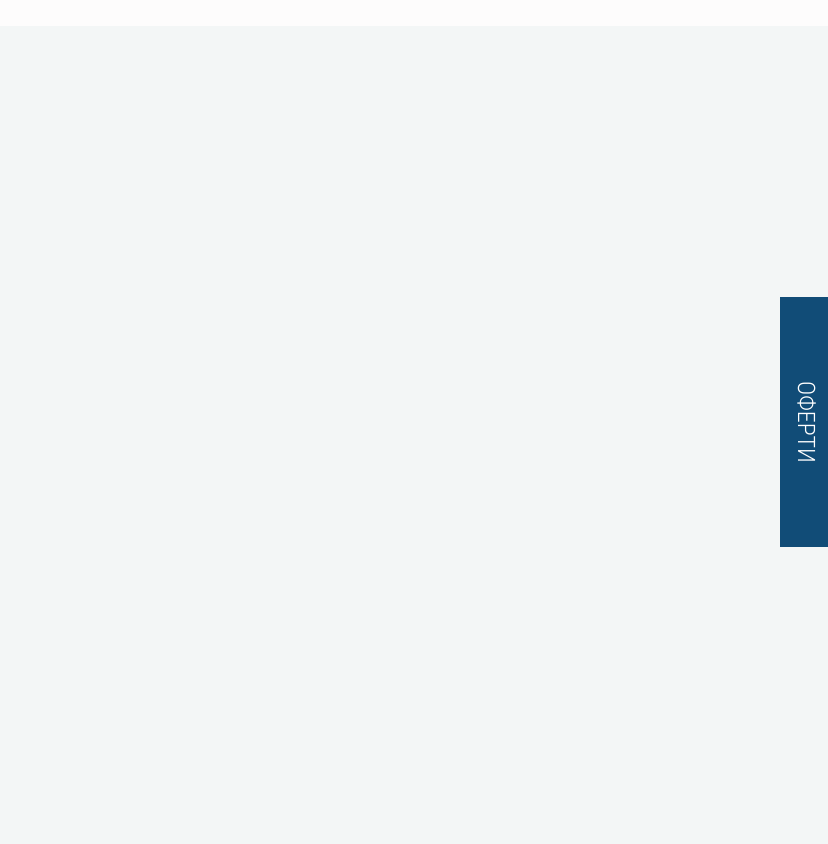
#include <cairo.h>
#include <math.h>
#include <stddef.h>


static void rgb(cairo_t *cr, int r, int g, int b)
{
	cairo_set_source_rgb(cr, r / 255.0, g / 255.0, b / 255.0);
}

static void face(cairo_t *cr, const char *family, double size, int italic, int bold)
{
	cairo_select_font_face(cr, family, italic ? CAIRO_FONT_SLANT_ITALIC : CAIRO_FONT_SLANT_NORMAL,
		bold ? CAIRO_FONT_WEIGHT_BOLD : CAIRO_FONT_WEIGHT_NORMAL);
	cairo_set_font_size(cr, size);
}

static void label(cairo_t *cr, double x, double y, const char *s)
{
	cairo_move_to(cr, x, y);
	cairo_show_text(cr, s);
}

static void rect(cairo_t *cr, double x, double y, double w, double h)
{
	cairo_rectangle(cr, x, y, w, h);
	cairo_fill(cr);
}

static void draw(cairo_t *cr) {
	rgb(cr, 243, 246, 246);
	cairo_paint(cr);
	rgb(cr, 253, 252, 252);
	rect(cr, 0, 0, 828, 26);
	rgb(cr, 17, 76, 119);
	rect(cr, 780, 297, 48, 250);
	face(cr, "Roboto Condensed Light", 24, 0, 0);
	rgb(cr, 255, 255, 255);
	cairo_save(cr);
	cairo_translate(cr, 798, 381);
	cairo_rotate(cr, 90 * M_PI / 180);
	label(cr, 0, 0, "ОФЕРТИ");
	cairo_restore(cr);
}

int main(void) {
	cairo_surface_t *surface = cairo_image_surface_create(CAIRO_FORMAT_RGB24, 828, 844);
	cairo_t *cr = cairo_create(surface);
	cairo_font_options_t *options = cairo_font_options_create();
	cairo_font_options_set_hint_metrics(options, CAIRO_HINT_METRICS_OFF);
	cairo_font_options_set_hint_style(options, CAIRO_HINT_STYLE_NONE);
	cairo_set_font_options(cr, options);
	cairo_set_miter_limit(cr, 4);
	draw(cr);
	cairo_surface_write_to_png(surface, "render.png");
	cairo_font_options_destroy(options);
	cairo_destroy(cr);
	cairo_surface_destroy(surface);
	return 0;
}
